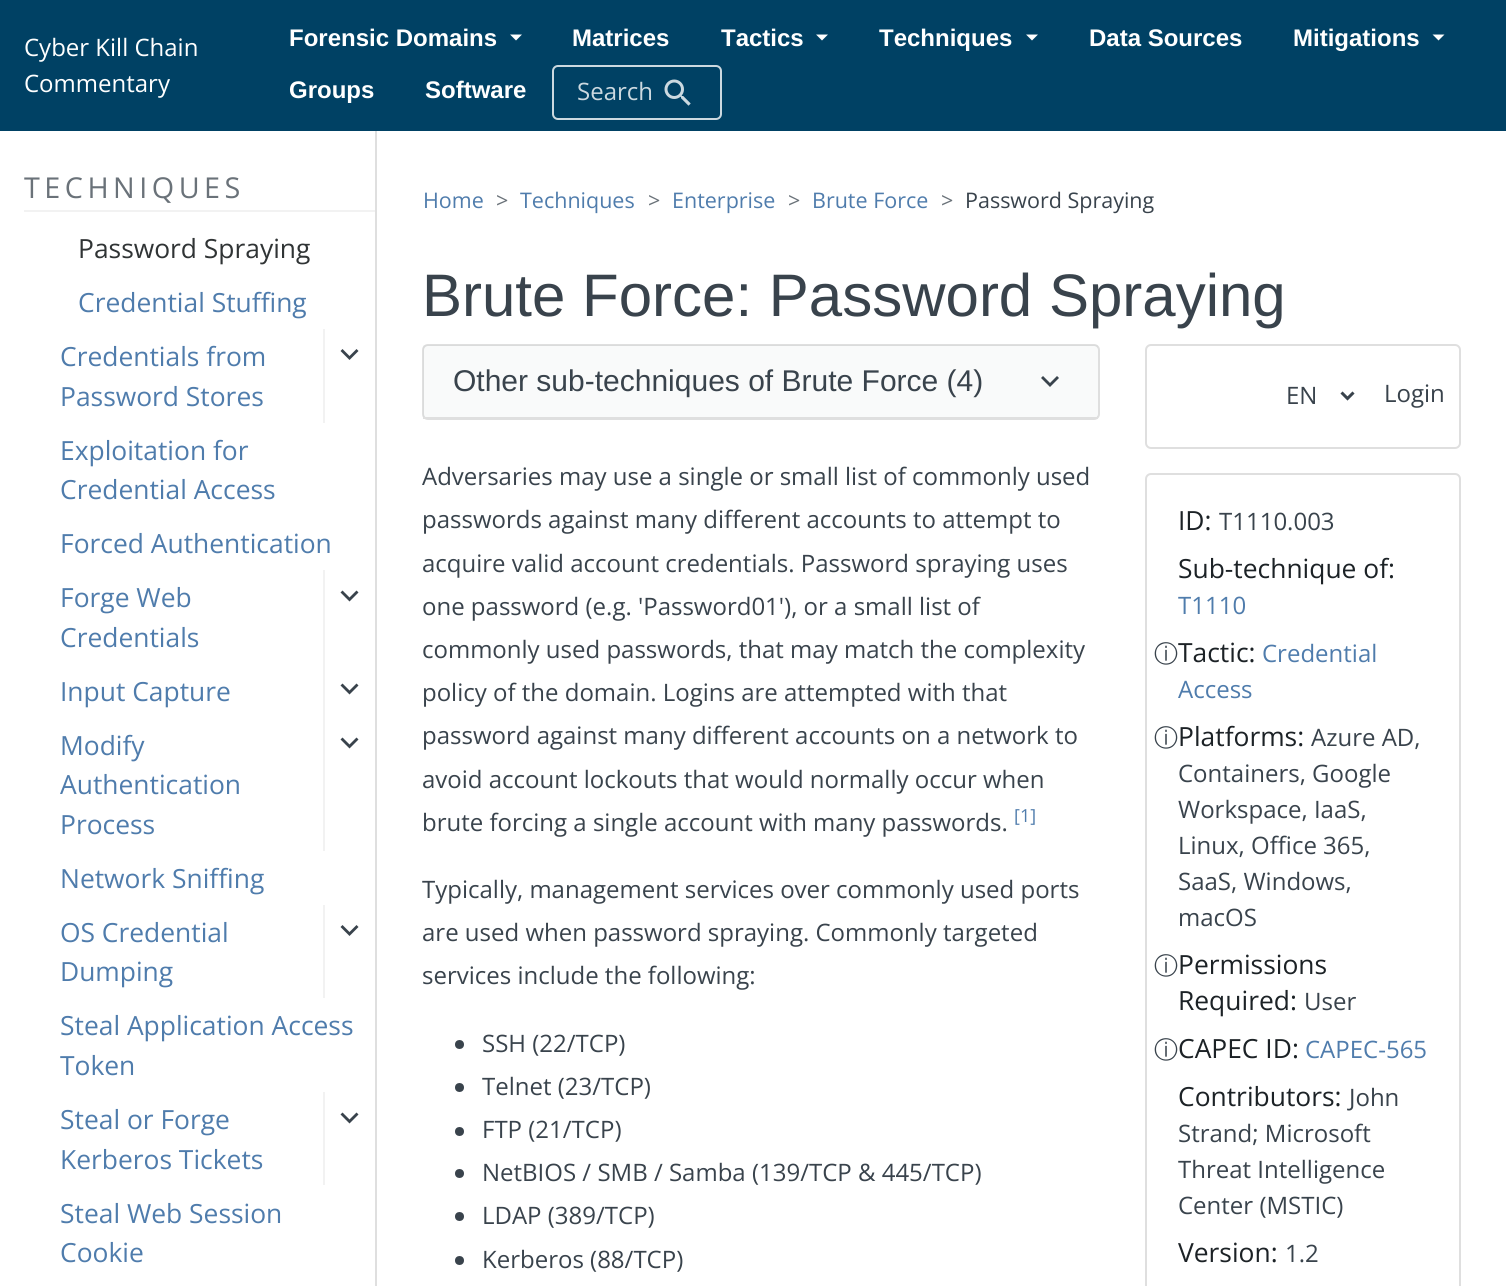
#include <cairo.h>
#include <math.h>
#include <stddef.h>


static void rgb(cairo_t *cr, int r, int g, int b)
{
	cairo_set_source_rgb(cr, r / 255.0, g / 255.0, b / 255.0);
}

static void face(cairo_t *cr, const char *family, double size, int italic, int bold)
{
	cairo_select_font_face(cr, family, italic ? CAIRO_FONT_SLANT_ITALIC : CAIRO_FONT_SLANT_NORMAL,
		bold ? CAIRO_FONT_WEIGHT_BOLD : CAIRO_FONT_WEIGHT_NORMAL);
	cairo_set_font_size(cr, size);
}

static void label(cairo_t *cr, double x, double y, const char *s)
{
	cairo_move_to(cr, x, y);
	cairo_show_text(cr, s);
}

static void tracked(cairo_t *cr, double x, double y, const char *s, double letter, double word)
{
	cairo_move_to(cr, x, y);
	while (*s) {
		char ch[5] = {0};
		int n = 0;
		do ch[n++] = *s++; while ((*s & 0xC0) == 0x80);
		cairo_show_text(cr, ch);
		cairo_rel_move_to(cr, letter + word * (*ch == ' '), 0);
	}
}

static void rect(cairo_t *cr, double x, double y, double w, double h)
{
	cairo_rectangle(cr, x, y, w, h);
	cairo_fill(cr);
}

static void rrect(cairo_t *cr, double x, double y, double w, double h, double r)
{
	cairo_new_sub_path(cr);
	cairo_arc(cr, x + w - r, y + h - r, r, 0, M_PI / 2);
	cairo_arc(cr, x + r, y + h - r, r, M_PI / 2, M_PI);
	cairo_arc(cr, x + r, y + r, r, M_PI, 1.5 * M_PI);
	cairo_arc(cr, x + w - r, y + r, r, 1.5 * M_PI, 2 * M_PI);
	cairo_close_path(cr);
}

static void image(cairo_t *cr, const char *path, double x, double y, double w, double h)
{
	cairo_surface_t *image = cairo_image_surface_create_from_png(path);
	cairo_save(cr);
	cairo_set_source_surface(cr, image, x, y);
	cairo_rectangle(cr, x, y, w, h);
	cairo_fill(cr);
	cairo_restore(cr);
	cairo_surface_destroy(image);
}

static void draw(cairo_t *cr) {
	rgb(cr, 255, 255, 255);
	cairo_paint(cr);
	rgb(cr, 0, 65, 100);
	rect(cr, 0, 0, 1506, 131);
	face(cr, "Open Sans", 24, 0, 0);
	rgb(cr, 255, 255, 255);
	label(cr, 24, 56, "Cyber Kill Chain");
	label(cr, 24, 92, "Commentary");
	face(cr, "Liberation Sans", 24, 0, 1);
	label(cr, 289, 46, "Forensic Domains");
	cairo_new_path(cr);
	cairo_move_to(cr, 510, 34.5);
	cairo_line_to(cr, 522, 34.5);
	cairo_line_to(cr, 516, 40.5);
	cairo_close_path(cr);
	cairo_fill(cr);
	label(cr, 572, 46, "Matrices");
	label(cr, 721, 46, "Tactics");
	cairo_new_path(cr);
	cairo_move_to(cr, 816, 34.5);
	cairo_line_to(cr, 828, 34.5);
	cairo_line_to(cr, 822, 40.5);
	cairo_close_path(cr);
	cairo_fill(cr);
	label(cr, 879, 46, "Techniques");
	cairo_new_path(cr);
	cairo_move_to(cr, 1026, 34.5);
	cairo_line_to(cr, 1038, 34.5);
	cairo_line_to(cr, 1032, 40.5);
	cairo_close_path(cr);
	cairo_fill(cr);
	label(cr, 1089, 46, "Data Sources");
	label(cr, 1293, 46, "Mitigations");
	cairo_new_path(cr);
	cairo_move_to(cr, 1432.5, 34.5);
	cairo_line_to(cr, 1444.5, 34.5);
	cairo_line_to(cr, 1438.5, 40.5);
	cairo_close_path(cr);
	cairo_fill(cr);
	label(cr, 289, 98, "Groups");
	label(cr, 425, 98, "Software");
	rrect(cr, 553, 66, 168, 53, 5);
	rgb(cr, 204, 217, 224);
	cairo_stroke(cr);
	face(cr, "Open Sans", 24, 0, 0);
	label(cr, 577, 100, "Search");
	image(cr, "image0.png", 664, 79, 27, 27);
	rgb(cr, 223, 223, 223);
	rect(cr, 375, 131, 2, 1155);
	rgb(cr, 242, 242, 242);
	rect(cr, 24, 210, 351, 2);
	face(cr, "Open Sans", 28.75, 0, 0);
	rgb(cr, 106, 114, 121);
	tracked(cr, 24, 198, "TECHNIQUES", 4.5, 0);
	face(cr, "Open Sans", 26.4, 0, 0);
	rgb(cr, 48, 52, 53);
	label(cr, 78, 258, "Password Spraying");
	rgb(cr, 79, 124, 172);
	label(cr, 78, 312, "Credential Stuffing");
	label(cr, 60, 366, "Credentials from");
	label(cr, 60, 406, "Password Stores");
	rgb(cr, 242, 242, 242);
	rect(cr, 323, 329, 2, 94);
	rgb(cr, 57, 67, 76);
	cairo_new_path(cr);
	cairo_move_to(cr, 356.5, 349);
	cairo_line_to(cr, 349.5, 356);
	cairo_line_to(cr, 342.5, 349);
	cairo_line_to(cr, 340.5, 351);
	cairo_line_to(cr, 349.5, 360);
	cairo_line_to(cr, 358.5, 351);
	cairo_close_path(cr);
	cairo_fill(cr);
	rgb(cr, 79, 124, 172);
	label(cr, 60, 460, "Exploitation for");
	label(cr, 60, 499, "Credential Access");
	label(cr, 60, 553, "Forced Authentication");
	label(cr, 60, 607, "Forge Web");
	label(cr, 60, 647, "Credentials");
	rgb(cr, 242, 242, 242);
	rect(cr, 323, 570, 2, 281);
	rgb(cr, 57, 67, 76);
	cairo_new_path(cr);
	cairo_move_to(cr, 356.5, 590.5);
	cairo_line_to(cr, 349.5, 597.5);
	cairo_line_to(cr, 342.5, 590.5);
	cairo_line_to(cr, 340.5, 592.5);
	cairo_line_to(cr, 349.5, 601.5);
	cairo_line_to(cr, 358.5, 592.5);
	cairo_close_path(cr);
	cairo_fill(cr);
	rgb(cr, 79, 124, 172);
	label(cr, 60, 701, "Input Capture");
	rgb(cr, 57, 67, 76);
	cairo_new_path(cr);
	cairo_move_to(cr, 356.5, 683.5);
	cairo_line_to(cr, 349.5, 690.5);
	cairo_line_to(cr, 342.5, 683.5);
	cairo_line_to(cr, 340.5, 685.5);
	cairo_line_to(cr, 349.5, 694.5);
	cairo_line_to(cr, 358.5, 685.5);
	cairo_close_path(cr);
	cairo_fill(cr);
	rgb(cr, 79, 124, 172);
	label(cr, 60, 755, "Modify");
	label(cr, 60, 794, "Authentication");
	label(cr, 60, 834, "Process");
	rgb(cr, 57, 67, 76);
	cairo_new_path(cr);
	cairo_move_to(cr, 356.5, 737.5);
	cairo_line_to(cr, 349.5, 744.5);
	cairo_line_to(cr, 342.5, 737.5);
	cairo_line_to(cr, 340.5, 739.5);
	cairo_line_to(cr, 349.5, 748.5);
	cairo_line_to(cr, 358.5, 739.5);
	cairo_close_path(cr);
	cairo_fill(cr);
	rgb(cr, 79, 124, 172);
	label(cr, 60, 888, "Network Sniffing");
	label(cr, 60, 942, "OS Credential");
	label(cr, 60, 981, "Dumping");
	rgb(cr, 242, 242, 242);
	rect(cr, 323, 905, 2, 93);
	rgb(cr, 57, 67, 76);
	cairo_new_path(cr);
	cairo_move_to(cr, 356.5, 925);
	cairo_line_to(cr, 349.5, 932);
	cairo_line_to(cr, 342.5, 925);
	cairo_line_to(cr, 340.5, 927);
	cairo_line_to(cr, 349.5, 936);
	cairo_line_to(cr, 358.5, 927);
	cairo_close_path(cr);
	cairo_fill(cr);
	rgb(cr, 79, 124, 172);
	label(cr, 60, 1035, "Steal Application Access");
	label(cr, 60, 1075, "Token");
	label(cr, 60, 1129, "Steal or Forge");
	label(cr, 60, 1169, "Kerberos Tickets");
	rgb(cr, 242, 242, 242);
	rect(cr, 323, 1092, 2, 93);
	rgb(cr, 57, 67, 76);
	cairo_new_path(cr);
	cairo_move_to(cr, 356.5, 1112.5);
	cairo_line_to(cr, 349.5, 1119.5);
	cairo_line_to(cr, 342.5, 1112.5);
	cairo_line_to(cr, 340.5, 1114.5);
	cairo_line_to(cr, 349.5, 1123.5);
	cairo_line_to(cr, 358.5, 1114.5);
	cairo_close_path(cr);
	cairo_fill(cr);
	rgb(cr, 79, 124, 172);
	label(cr, 60, 1223, "Steal Web Session");
	label(cr, 60, 1262, "Cookie");
	face(cr, "Open Sans", 21.5, 0, 0);
	label(cr, 423, 208, "Home");
	rgb(cr, 106, 114, 121);
	label(cr, 496, 208, ">");
	rgb(cr, 79, 124, 172);
	label(cr, 520, 208, "Techniques");
	rgb(cr, 106, 114, 121);
	label(cr, 648, 208, ">");
	rgb(cr, 79, 124, 172);
	label(cr, 672, 208, "Enterprise");
	rgb(cr, 106, 114, 121);
	label(cr, 788, 208, ">");
	rgb(cr, 79, 124, 172);
	label(cr, 812, 208, "Brute Force");
	rgb(cr, 106, 114, 121);
	label(cr, 941, 208, ">");
	rgb(cr, 57, 67, 76);
	label(cr, 965, 208, "Password Spraying");
	face(cr, "Liberation Sans", 60, 0, 0);
	label(cr, 422, 316, "Brute Force: Password Spraying");
	rrect(cr, 423, 345, 676, 74, 5);
	rgb(cr, 223, 223, 223);
	cairo_stroke(cr);
	cairo_set_source_rgba(cr, 0.224, 0.263, 0.298, 0.03);
	rect(cr, 423, 345, 675, 72);
	rgb(cr, 223, 223, 223);
	rect(cr, 423, 417, 675, 2);
	face(cr, "Liberation Sans", 30, 0, 0);
	rgb(cr, 57, 67, 76);
	label(cr, 453, 391, "Other sub-techniques of Brute Force (4)");
	cairo_new_path(cr);
	cairo_move_to(cr, 1057, 376);
	cairo_line_to(cr, 1050, 383);
	cairo_line_to(cr, 1043, 376);
	cairo_line_to(cr, 1041, 378);
	cairo_line_to(cr, 1050, 387);
	cairo_line_to(cr, 1059, 378);
	cairo_close_path(cr);
	cairo_fill(cr);
	face(cr, "Open Sans", 24, 0, 0);
	label(cr, 422, 485, "Adversaries may use a single or small list of commonly used");
	label(cr, 422, 528, "passwords against many different accounts to attempt to");
	label(cr, 422, 572, "acquire valid account credentials. Password spraying uses");
	label(cr, 422, 615, "one password (e.g. 'Password01'), or a small list of");
	label(cr, 422, 658, "commonly used passwords, that may match the complexity");
	label(cr, 422, 701, "policy of the domain. Logins are attempted with that");
	label(cr, 422, 744, "password against many different accounts on a network to");
	label(cr, 422, 788, "avoid account lockouts that would normally occur when");
	label(cr, 422, 831, "brute forcing a single account with many passwords.");
	face(cr, "Open Sans", 18, 0, 0);
	rgb(cr, 79, 124, 172);
	label(cr, 1014, 822, "[1]");
	face(cr, "Open Sans", 24, 0, 0);
	rgb(cr, 57, 67, 76);
	label(cr, 422, 898, "Typically, management services over commonly used ports");
	label(cr, 422, 941, "are used when password spraying. Commonly targeted");
	label(cr, 422, 984, "services include the following:");
	cairo_new_path(cr);
	cairo_arc(cr, 459.5, 1044.5, 4.5, 0, 2 * M_PI);
	cairo_fill(cr);
	label(cr, 482, 1052, "SSH (22/TCP)");
	cairo_new_path(cr);
	cairo_arc(cr, 459.5, 1087.5, 4.5, 0, 2 * M_PI);
	cairo_fill(cr);
	label(cr, 482, 1095, "Telnet (23/TCP)");
	cairo_new_path(cr);
	cairo_arc(cr, 459.5, 1131.5, 4.5, 0, 2 * M_PI);
	cairo_fill(cr);
	label(cr, 482, 1138, "FTP (21/TCP)");
	cairo_new_path(cr);
	cairo_arc(cr, 459.5, 1173.5, 4.5, 0, 2 * M_PI);
	cairo_fill(cr);
	label(cr, 482, 1181, "NetBIOS / SMB / Samba (139/TCP & 445/TCP)");
	cairo_new_path(cr);
	cairo_arc(cr, 459.5, 1216.5, 4.5, 0, 2 * M_PI);
	cairo_fill(cr);
	label(cr, 482, 1224, "LDAP (389/TCP)");
	cairo_new_path(cr);
	cairo_arc(cr, 459.5, 1260.5, 4.5, 0, 2 * M_PI);
	cairo_fill(cr);
	label(cr, 482, 1268, "Kerberos (88/TCP)");
	rrect(cr, 1146, 345, 314, 103, 5);
	rgb(cr, 223, 223, 223);
	cairo_stroke(cr);
	cairo_new_path(cr);
	cairo_move_to(cr, 1341.5, 392.5);
	cairo_line_to(cr, 1347.5, 398.5);
	cairo_line_to(cr, 1353.5, 392.5);
	rgb(cr, 57, 67, 76);
	cairo_set_line_width(cr, 3);
	cairo_stroke(cr);
	label(cr, 1286, 404, "EN");
	label(cr, 1384, 402, "Login");
	rrect(cr, 1146, 474, 314, 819, 5);
	rgb(cr, 223, 223, 223);
	cairo_set_line_width(cr, 2);
	cairo_stroke(cr);
	face(cr, "Open Sans", 26.4, 0, 0);
	rgb(cr, 28, 34, 38);
	label(cr, 1178, 530, "ID:");
	face(cr, "Open Sans", 24, 0, 0);
	rgb(cr, 57, 67, 76);
	label(cr, 1219, 530, "T1110.003");
	face(cr, "Open Sans", 26.4, 0, 0);
	rgb(cr, 28, 34, 38);
	label(cr, 1178, 578, "Sub-technique of:");
	face(cr, "Open Sans", 24, 0, 0);
	rgb(cr, 79, 124, 172);
	label(cr, 1178, 614, "T1110");
	face(cr, "WenQuanYi Zen Hei Medium", 24, 0, 0);
	rgb(cr, 57, 67, 76);
	label(cr, 1154, 662, "ⓘ");
	face(cr, "Open Sans", 26.4, 0, 0);
	rgb(cr, 28, 34, 38);
	label(cr, 1178, 662, "Tactic:");
	face(cr, "Open Sans", 24, 0, 0);
	rgb(cr, 79, 124, 172);
	label(cr, 1262, 662, "Credential");
	label(cr, 1178, 698, "Access");
	face(cr, "WenQuanYi Zen Hei Medium", 24, 0, 0);
	rgb(cr, 57, 67, 76);
	label(cr, 1154, 746, "ⓘ");
	face(cr, "Open Sans", 26.4, 0, 0);
	rgb(cr, 28, 34, 38);
	label(cr, 1178, 746, "Platforms:");
	face(cr, "Open Sans", 24, 0, 0);
	rgb(cr, 57, 67, 76);
	label(cr, 1311, 746, "Azure AD,");
	label(cr, 1178, 782, "Containers, Google");
	label(cr, 1178, 818, "Workspace, IaaS,");
	label(cr, 1178, 854, "Linux, Office 365,");
	label(cr, 1178, 890, "SaaS, Windows,");
	label(cr, 1178, 926, "macOS");
	face(cr, "WenQuanYi Zen Hei Medium", 24, 0, 0);
	label(cr, 1154, 974, "ⓘ");
	face(cr, "Open Sans", 26.4, 0, 0);
	rgb(cr, 28, 34, 38);
	label(cr, 1178, 974, "Permissions");
	label(cr, 1178, 1010, "Required:");
	face(cr, "Open Sans", 24, 0, 0);
	rgb(cr, 57, 67, 76);
	label(cr, 1304, 1010, "User");
	face(cr, "WenQuanYi Zen Hei Medium", 24, 0, 0);
	label(cr, 1154, 1058, "ⓘ");
	face(cr, "Open Sans", 26.4, 0, 0);
	rgb(cr, 28, 34, 38);
	label(cr, 1178, 1058, "CAPEC ID:");
	face(cr, "Open Sans", 24, 0, 0);
	rgb(cr, 79, 124, 172);
	label(cr, 1305, 1058, "CAPEC-565");
	face(cr, "Open Sans", 26.4, 0, 0);
	rgb(cr, 28, 34, 38);
	label(cr, 1178, 1106, "Contributors:");
	face(cr, "Open Sans", 24, 0, 0);
	rgb(cr, 57, 67, 76);
	label(cr, 1349, 1106, "John");
	label(cr, 1178, 1142, "Strand; Microsoft");
	label(cr, 1178, 1178, "Threat Intelligence");
	label(cr, 1178, 1214, "Center (MSTIC)");
	face(cr, "Open Sans", 26.4, 0, 0);
	rgb(cr, 28, 34, 38);
	label(cr, 1178, 1262, "Version:");
	face(cr, "Open Sans", 24, 0, 0);
	rgb(cr, 57, 67, 76);
	label(cr, 1285, 1262, "1.2");
}

int main(void) {
	cairo_surface_t *surface = cairo_image_surface_create(CAIRO_FORMAT_RGB24, 1506, 1286);
	cairo_t *cr = cairo_create(surface);
	cairo_font_options_t *options = cairo_font_options_create();
	cairo_font_options_set_hint_metrics(options, CAIRO_HINT_METRICS_OFF);
	cairo_font_options_set_hint_style(options, CAIRO_HINT_STYLE_NONE);
	cairo_set_font_options(cr, options);
	cairo_set_miter_limit(cr, 4);
	draw(cr);
	cairo_surface_write_to_png(surface, "render.png");
	cairo_font_options_destroy(options);
	cairo_destroy(cr);
	cairo_surface_destroy(surface);
	return 0;
}
